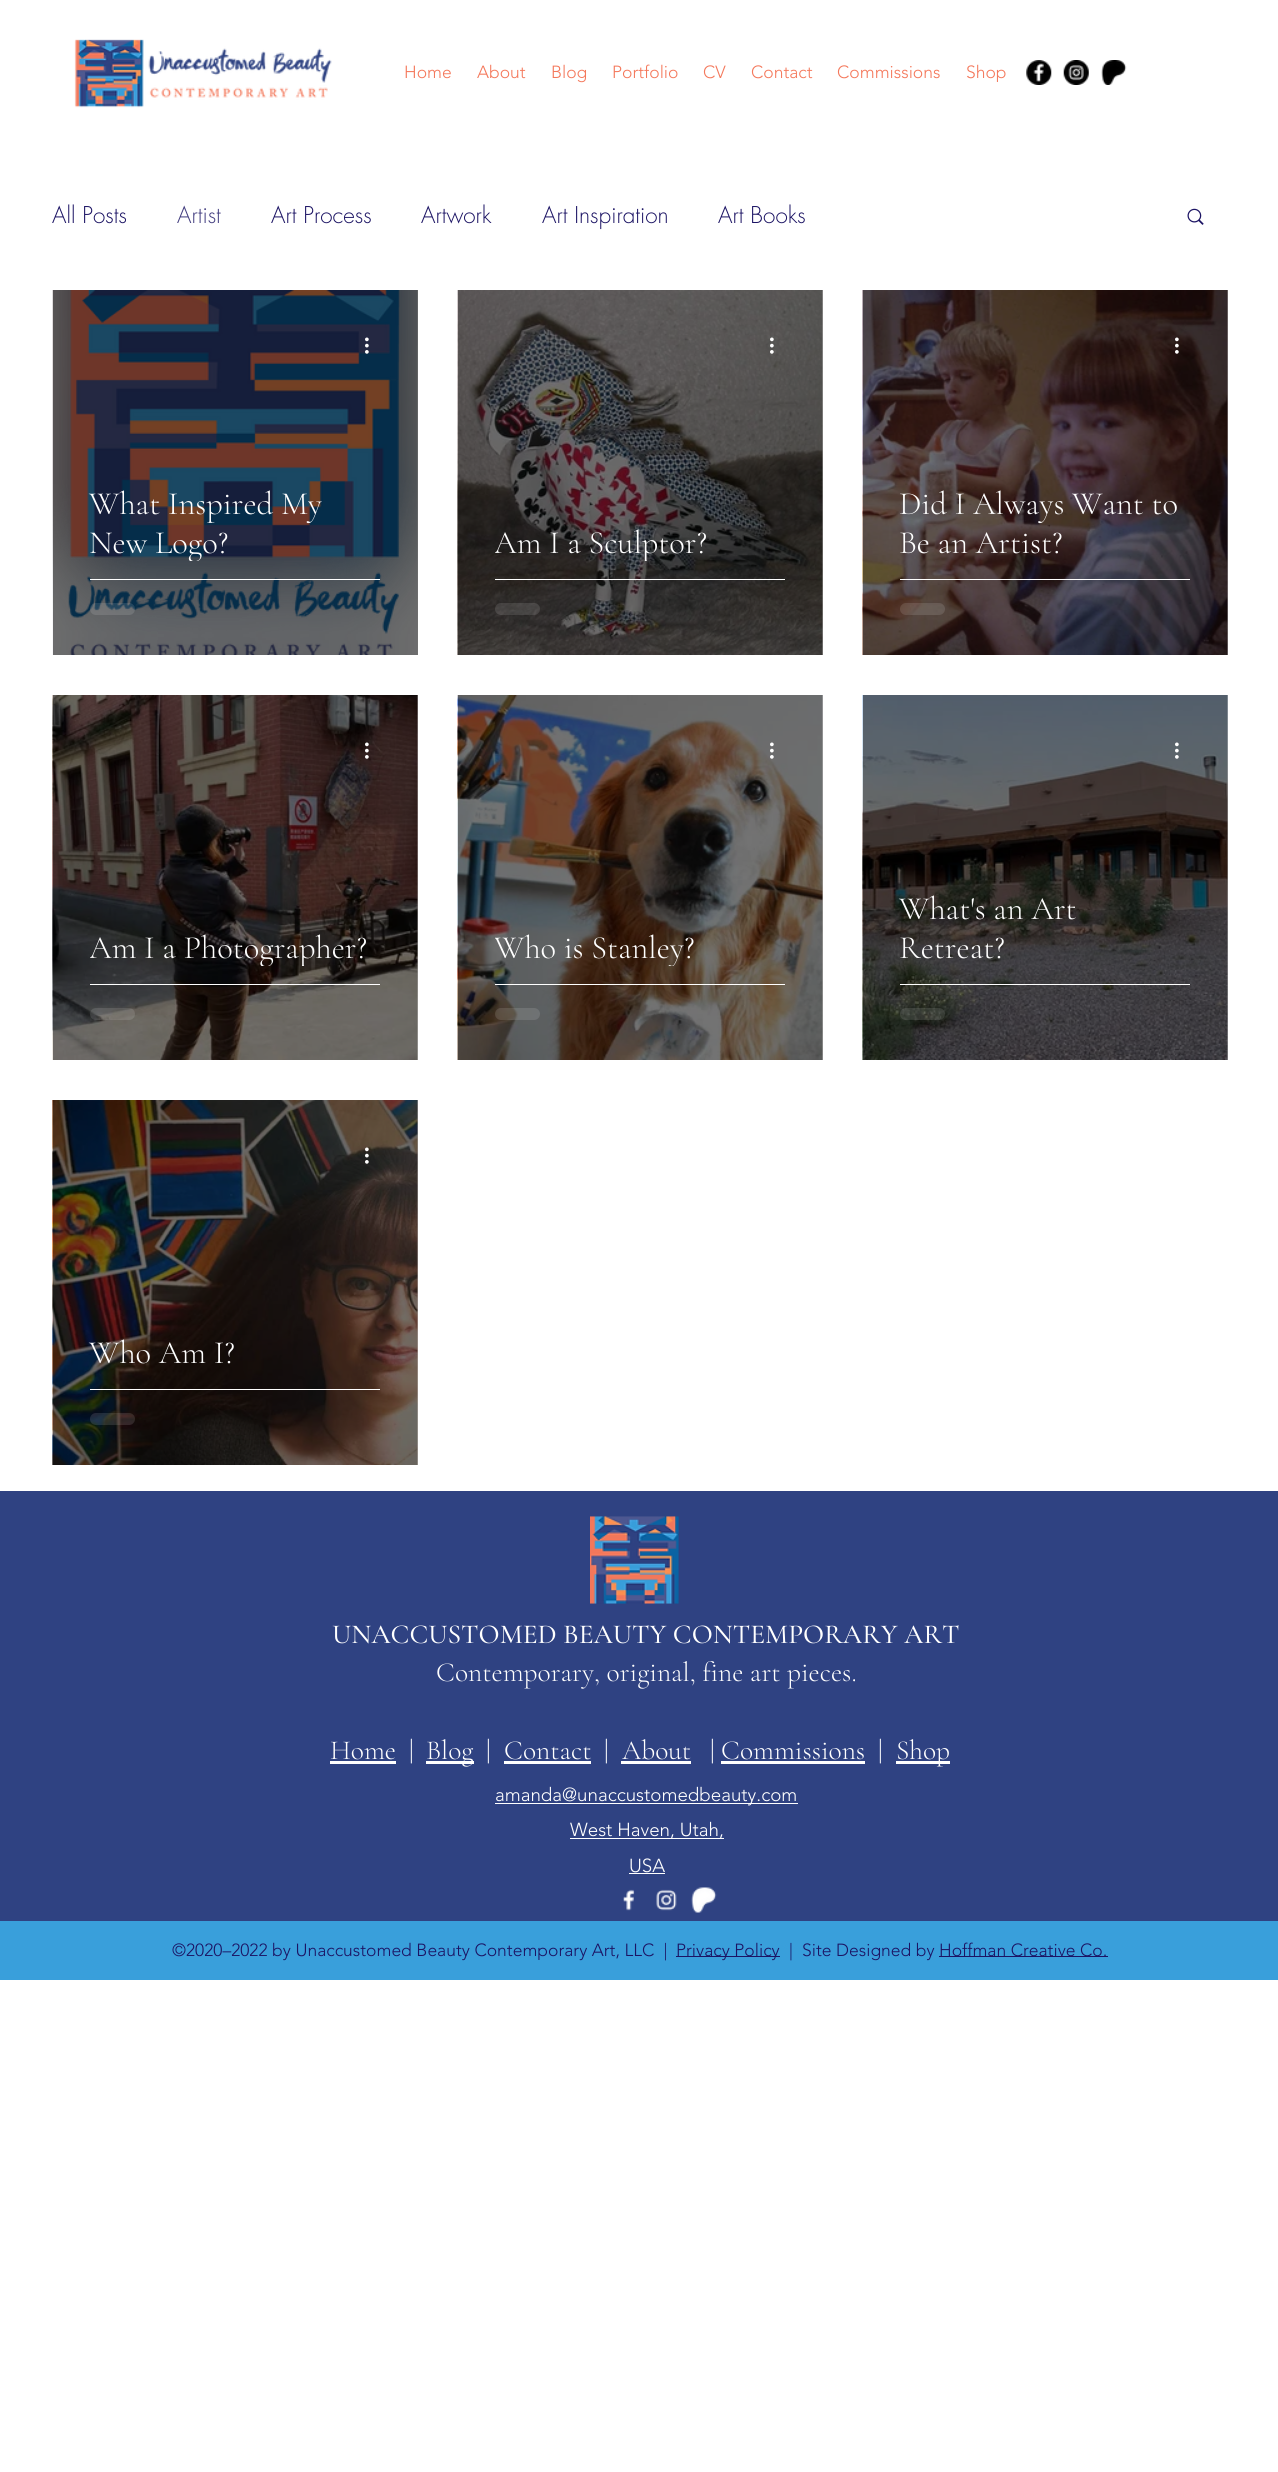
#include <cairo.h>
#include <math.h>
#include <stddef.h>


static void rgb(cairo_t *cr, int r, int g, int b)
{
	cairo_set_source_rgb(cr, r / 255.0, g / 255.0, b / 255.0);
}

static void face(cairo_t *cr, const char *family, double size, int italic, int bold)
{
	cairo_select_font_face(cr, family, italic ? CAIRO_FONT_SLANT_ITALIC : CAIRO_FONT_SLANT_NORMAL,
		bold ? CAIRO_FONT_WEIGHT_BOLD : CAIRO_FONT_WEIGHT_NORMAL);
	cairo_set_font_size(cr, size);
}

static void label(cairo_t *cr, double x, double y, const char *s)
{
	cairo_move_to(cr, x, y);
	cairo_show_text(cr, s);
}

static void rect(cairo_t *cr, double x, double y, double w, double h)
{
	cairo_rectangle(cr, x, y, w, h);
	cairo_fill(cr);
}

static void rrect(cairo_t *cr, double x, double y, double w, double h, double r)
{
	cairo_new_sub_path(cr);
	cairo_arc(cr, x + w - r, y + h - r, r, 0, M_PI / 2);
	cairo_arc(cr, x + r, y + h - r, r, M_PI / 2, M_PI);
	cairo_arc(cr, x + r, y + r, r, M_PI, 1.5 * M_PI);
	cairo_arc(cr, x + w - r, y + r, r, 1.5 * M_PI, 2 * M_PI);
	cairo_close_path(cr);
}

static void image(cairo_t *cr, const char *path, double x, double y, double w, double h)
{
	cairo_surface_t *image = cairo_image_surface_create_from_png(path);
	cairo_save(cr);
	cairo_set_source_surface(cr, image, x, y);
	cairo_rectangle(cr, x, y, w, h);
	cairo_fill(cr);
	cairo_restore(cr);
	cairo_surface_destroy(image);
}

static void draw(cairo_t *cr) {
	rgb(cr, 255, 255, 255);
	cairo_paint(cr);
	rgb(cr, 115, 115, 115);
	rect(cr, 53, 290, 365, 365);
	image(cr, "image0.png", 74, 39, 258, 69);
	face(cr, "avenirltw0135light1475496 Light", 17.5, 0, 0);
	rgb(cr, 244, 120, 91);
	label(cr, 404, 78, "Home");
	label(cr, 477, 78, "About");
	label(cr, 551, 78, "Blog");
	label(cr, 612, 78, "Portfolio");
	label(cr, 703, 78, "CV");
	label(cr, 751, 78, "Contact");
	label(cr, 837, 78, "Commissions");
	label(cr, 966, 78, "Shop");
	image(cr, "image1.png", 1026, 60, 26, 25);
	image(cr, "image2.png", 1063, 60, 26, 25);
	image(cr, "image3.png", 1101, 60, 26, 25);
	face(cr, "futura Light", 22.5, 0, 0);
	rgb(cr, 28, 20, 100);
	label(cr, 52, 223, "All Posts");
	rgb(cr, 66, 61, 127);
	label(cr, 177, 223, "Artist");
	rgb(cr, 28, 20, 100);
	label(cr, 271, 223, "Art Process");
	label(cr, 421, 223, "Artwork");
	label(cr, 542, 223, "Art Inspiration");
	label(cr, 718, 223, "Art Books");
	image(cr, "image4.png", 1187, 208, 17, 17);
	image(cr, "image5.png", 52, 290, 366, 365);
	image(cr, "image6.png", 68, 290, 332, 365);
	image(cr, "image7.png", 365, 337, 4, 17);
	face(cr, "Cormorant Garamond Light", 32.5, 0, 0);
	rgb(cr, 255, 255, 255);
	label(cr, 89, 514, "What Inspired My");
	cairo_save(cr);
	cairo_rectangle(cr, 90, 484, 290, 77);
	cairo_clip(cr);
	label(cr, 89, 553, "New Logo?");
	cairo_restore(cr);
	rect(cr, 90, 579, 290, 1);
	cairo_set_source_rgba(cr, 1, 1, 1, 0.12);
	rrect(cr, 90, 603, 45, 12, 6);
	cairo_fill(cr);
	image(cr, "image8.png", 457, 290, 366, 365);
	image(cr, "image9.png", 457, 290, 366, 365);
	image(cr, "image10.png", 770, 337, 4, 17);
	cairo_save(cr);
	cairo_rectangle(cr, 495, 523, 290, 38);
	cairo_clip(cr);
	rgb(cr, 255, 255, 255);
	label(cr, 494, 553, "Am I a Sculptor?");
	cairo_restore(cr);
	rgb(cr, 255, 255, 255);
	rect(cr, 495, 579, 290, 1);
	cairo_set_source_rgba(cr, 1, 1, 1, 0.12);
	rrect(cr, 495, 603, 45, 12, 6);
	cairo_fill(cr);
	image(cr, "image11.png", 862, 290, 366, 365);
	image(cr, "image12.png", 862, 290, 366, 365);
	image(cr, "image13.png", 1175, 337, 4, 17);
	rgb(cr, 255, 255, 255);
	label(cr, 899, 514, "Did I Always Want to");
	label(cr, 899, 553, "Be an Artist?");
	rect(cr, 900, 579, 290, 1);
	cairo_set_source_rgba(cr, 1, 1, 1, 0.12);
	rrect(cr, 900, 603, 45, 12, 6);
	cairo_fill(cr);
	image(cr, "image14.png", 52, 695, 366, 365);
	image(cr, "image15.png", 52, 695, 366, 365);
	image(cr, "image16.png", 365, 742, 4, 17);
	cairo_save(cr);
	cairo_rectangle(cr, 90, 928, 290, 38);
	cairo_clip(cr);
	rgb(cr, 255, 255, 255);
	label(cr, 89, 958, "Am I a Photographer?");
	cairo_restore(cr);
	rgb(cr, 255, 255, 255);
	rect(cr, 90, 984, 290, 1);
	cairo_set_source_rgba(cr, 1, 1, 1, 0.12);
	rrect(cr, 90, 1008, 45, 12, 6);
	cairo_fill(cr);
	image(cr, "image17.png", 457, 695, 366, 365);
	image(cr, "image18.png", 457, 695, 366, 365);
	image(cr, "image19.png", 770, 742, 4, 17);
	cairo_save(cr);
	cairo_rectangle(cr, 495, 928, 290, 38);
	cairo_clip(cr);
	rgb(cr, 255, 255, 255);
	label(cr, 494, 958, "Who is Stanley?");
	cairo_restore(cr);
	rgb(cr, 255, 255, 255);
	rect(cr, 495, 984, 290, 1);
	cairo_set_source_rgba(cr, 1, 1, 1, 0.12);
	rrect(cr, 495, 1008, 45, 12, 6);
	cairo_fill(cr);
	image(cr, "image20.png", 862, 695, 366, 365);
	image(cr, "image21.png", 862, 695, 366, 365);
	image(cr, "image22.png", 1175, 742, 4, 17);
	rgb(cr, 255, 255, 255);
	label(cr, 899, 919, "What's an Art");
	label(cr, 899, 958, "Retreat?");
	rect(cr, 900, 984, 290, 1);
	cairo_set_source_rgba(cr, 1, 1, 1, 0.12);
	rrect(cr, 900, 1008, 45, 12, 6);
	cairo_fill(cr);
	image(cr, "image23.png", 52, 1100, 366, 365);
	image(cr, "image24.png", 52, 1100, 366, 365);
	image(cr, "image25.png", 365, 1147, 4, 17);
	rgb(cr, 255, 255, 255);
	label(cr, 89, 1363, "Who Am I?");
	rect(cr, 90, 1389, 290, 1);
	cairo_set_source_rgba(cr, 1, 1, 1, 0.12);
	rrect(cr, 90, 1413, 45, 12, 6);
	cairo_fill(cr);
	rgb(cr, 47, 66, 130);
	rect(cr, 0, 1491, 1278, 430);
	image(cr, "image26.png", 590, 1516, 89, 88);
	face(cr, "Cormorant Garamond Medium", 27.5, 0, 0);
	rgb(cr, 255, 255, 255);
	label(cr, 332, 1643, "UNACCUSTOMED BEAUTY CONTEMPORARY ART");
	face(cr, "Cormorant Garamond Light", 27.5, 0, 0);
	label(cr, 436, 1681, "Contemporary, original, fine art pieces.");
	label(cr, 330, 1759, "Home");
	rect(cr, 330, 1761, 66, 3);
	label(cr, 409, 1759, "|");
	rect(cr, 426, 1761, 48, 3);
	label(cr, 426, 1759, "Blog");
	label(cr, 486, 1759, "|");
	label(cr, 504, 1759, "Contact");
	rect(cr, 504, 1761, 87, 3);
	label(cr, 604, 1759, "|");
	label(cr, 622, 1759, "About");
	rect(cr, 621, 1761, 70, 3);
	label(cr, 710, 1759, "| Commissions");
	rect(cr, 721, 1761, 144, 3);
	label(cr, 878, 1759, "|");
	rect(cr, 896, 1761, 54, 3);
	label(cr, 896, 1759, "Shop");
	rect(cr, 495, 1803, 303, 1);
	face(cr, "avenirltw0135light1475496 Light", 18.75, 0, 0);
	label(cr, 495, 1801, "amanda@unaccustomedbeauty.com");
	rect(cr, 570, 1838, 154, 1);
	label(cr, 570, 1836, "West Haven, Utah,");
	label(cr, 629, 1872, "USA");
	rect(cr, 629, 1873, 36, 1);
	image(cr, "image27.png", 623, 1889, 12, 22);
	image(cr, "image28.png", 656, 1889, 21, 22);
	image(cr, "image29.png", 691, 1887, 26, 26);
	rgb(cr, 57, 159, 219);
	rect(cr, 0, 1921, 1278, 59);
	face(cr, "avenirltw0135light1475496 Light", 17.5, 0, 0);
	rgb(cr, 28, 20, 100);
	label(cr, 172, 1956, "©2020–2022 by Unaccustomed Beauty Contemporary Art, LLC  |");
	rect(cr, 676, 1956, 104, 1);
	label(cr, 676, 1956, "Privacy Policy");
	label(cr, 789, 1956, "|  Site Designed by");
	rect(cr, 939, 1956, 169, 1);
	label(cr, 939, 1956, "Hoffman Creative Co.");
}

int main(void) {
	cairo_surface_t *surface = cairo_image_surface_create(CAIRO_FORMAT_RGB24, 1278, 2472);
	cairo_t *cr = cairo_create(surface);
	cairo_font_options_t *options = cairo_font_options_create();
	cairo_font_options_set_hint_metrics(options, CAIRO_HINT_METRICS_OFF);
	cairo_font_options_set_hint_style(options, CAIRO_HINT_STYLE_NONE);
	cairo_set_font_options(cr, options);
	cairo_set_miter_limit(cr, 4);
	draw(cr);
	cairo_surface_write_to_png(surface, "render.png");
	cairo_font_options_destroy(options);
	cairo_destroy(cr);
	cairo_surface_destroy(surface);
	return 0;
}
